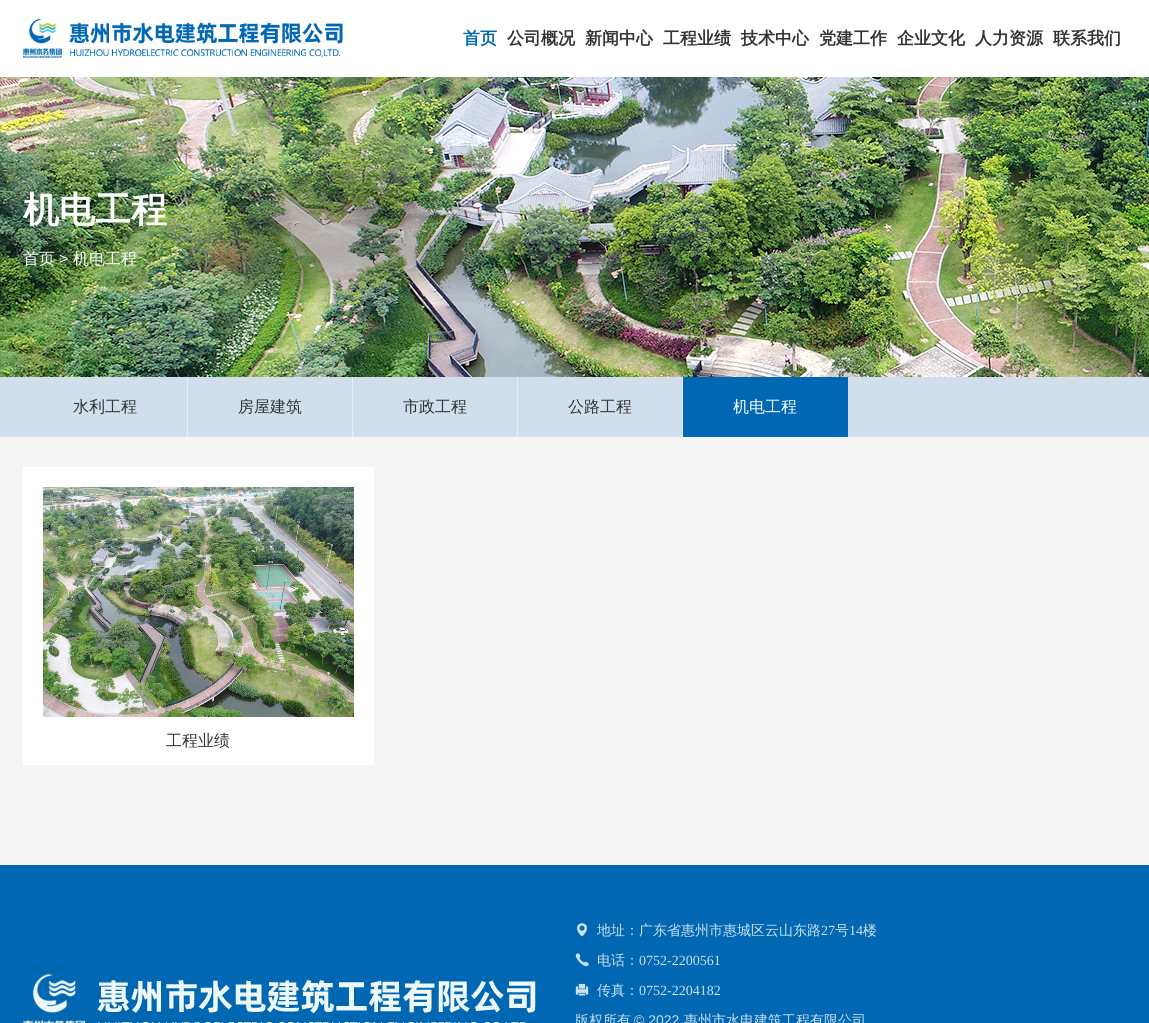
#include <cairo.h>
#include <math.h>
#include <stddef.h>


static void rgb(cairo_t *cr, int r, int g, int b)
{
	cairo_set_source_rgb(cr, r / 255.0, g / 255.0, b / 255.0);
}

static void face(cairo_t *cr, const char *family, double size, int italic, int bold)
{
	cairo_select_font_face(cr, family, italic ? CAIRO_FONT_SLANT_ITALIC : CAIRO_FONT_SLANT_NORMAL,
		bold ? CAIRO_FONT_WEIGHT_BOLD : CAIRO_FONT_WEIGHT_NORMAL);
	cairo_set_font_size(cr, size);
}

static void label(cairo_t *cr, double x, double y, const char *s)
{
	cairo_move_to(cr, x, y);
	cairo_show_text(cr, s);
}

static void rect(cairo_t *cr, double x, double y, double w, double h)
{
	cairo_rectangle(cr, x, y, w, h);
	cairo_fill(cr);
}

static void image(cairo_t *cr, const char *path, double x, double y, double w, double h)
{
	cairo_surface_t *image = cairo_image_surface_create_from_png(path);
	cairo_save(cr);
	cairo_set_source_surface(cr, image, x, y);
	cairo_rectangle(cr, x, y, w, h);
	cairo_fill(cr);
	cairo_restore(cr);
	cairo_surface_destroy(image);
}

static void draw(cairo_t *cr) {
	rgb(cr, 255, 255, 255);
	cairo_paint(cr);
	image(cr, "image0.png", 23, 19, 320, 39);
	face(cr, "WenQuanYi Zen Hei", 17, 0, 1);
	rgb(cr, 0, 103, 179);
	label(cr, 463, 44, "首页");
	rgb(cr, 51, 51, 51);
	label(cr, 507, 44, "公司概况");
	label(cr, 585, 44, "新闻中心");
	label(cr, 663, 44, "工程业绩");
	label(cr, 741, 44, "技术中心");
	label(cr, 819, 44, "党建工作");
	label(cr, 897, 44, "企业文化");
	label(cr, 975, 44, "人力资源");
	label(cr, 1053, 44, "联系我们");
	image(cr, "image1.png", 0, 77, 1149, 300);
	face(cr, "WenQuanYi Zen Hei", 36, 0, 1);
	rgb(cr, 255, 255, 255);
	label(cr, 23, 222, "机电工程");
	face(cr, "WenQuanYi Zen Hei Medium", 16, 0, 0);
	label(cr, 23, 264, "首页");
	face(cr, "Liberation Sans", 16, 0, 0);
	label(cr, 59, 264, ">");
	face(cr, "WenQuanYi Zen Hei Medium", 16, 0, 0);
	label(cr, 73, 264, "机电工程");
	rgb(cr, 208, 223, 235);
	rect(cr, 0, 377, 1149, 60);
	rgb(cr, 232, 239, 245);
	rect(cr, 187, 377, 1, 60);
	rgb(cr, 51, 51, 51);
	label(cr, 73, 412, "水利工程");
	rgb(cr, 232, 239, 245);
	rect(cr, 352, 377, 1, 60);
	rgb(cr, 51, 51, 51);
	label(cr, 238, 412, "房屋建筑");
	rgb(cr, 232, 239, 245);
	rect(cr, 517, 377, 1, 60);
	rgb(cr, 51, 51, 51);
	label(cr, 403, 412, "市政工程");
	rgb(cr, 232, 239, 245);
	rect(cr, 682, 377, 1, 60);
	rgb(cr, 51, 51, 51);
	label(cr, 568, 412, "公路工程");
	rgb(cr, 0, 103, 179);
	rect(cr, 683, 377, 165, 60);
	rgb(cr, 255, 255, 255);
	label(cr, 733, 412, "机电工程");
	rgb(cr, 244, 244, 244);
	rect(cr, 0, 437, 1149, 428);
	rgb(cr, 255, 255, 255);
	rect(cr, 23, 467, 351, 298);
	image(cr, "image2.png", 43, 487, 311, 230);
	rgb(cr, 51, 51, 51);
	label(cr, 166, 746, "工程业绩");
	rgb(cr, 0, 103, 179);
	rect(cr, 0, 865, 1149, 158);
	image(cr, "image3.png", 23, 974, 513, 49);
	image(cr, "image4.png", 577, 923, 10, 14);
	face(cr, "WenQuanYi Zen Hei Medium", 14, 0, 0);
	rgb(cr, 204, 225, 240);
	label(cr, 597, 935, "地址：广东省惠州市惠城区云山东路");
	face(cr, "Liberation Serif", 14, 0, 0);
	label(cr, 821, 935, "27");
	face(cr, "WenQuanYi Zen Hei Medium", 14, 0, 0);
	label(cr, 835, 935, "号");
	face(cr, "Liberation Serif", 14, 0, 0);
	label(cr, 849, 935, "14");
	face(cr, "WenQuanYi Zen Hei Medium", 14, 0, 0);
	label(cr, 863, 935, "楼");
	image(cr, "image5.png", 575, 953, 14, 14);
	label(cr, 597, 965, "电话：");
	face(cr, "Liberation Serif", 14, 0, 0);
	label(cr, 639, 965, "0752-2200561");
	image(cr, "image6.png", 575, 983, 14, 13);
	face(cr, "WenQuanYi Zen Hei Medium", 14, 0, 0);
	label(cr, 597, 995, "传真：");
	face(cr, "Liberation Serif", 14, 0, 0);
	label(cr, 639, 995, "0752-2204182");
	face(cr, "WenQuanYi Zen Hei Medium", 14, 0, 0);
	label(cr, 575, 1025, "版权所有");
	face(cr, "Liberation Sans", 14, 0, 0);
	label(cr, 634, 1025, "© 2022");
	face(cr, "WenQuanYi Zen Hei Medium", 14, 0, 0);
	label(cr, 684, 1025, "惠州市水电建筑工程有限公司");
}

int main(void) {
	cairo_surface_t *surface = cairo_image_surface_create(CAIRO_FORMAT_RGB24, 1149, 1023);
	cairo_t *cr = cairo_create(surface);
	cairo_font_options_t *options = cairo_font_options_create();
	cairo_font_options_set_hint_metrics(options, CAIRO_HINT_METRICS_OFF);
	cairo_font_options_set_hint_style(options, CAIRO_HINT_STYLE_NONE);
	cairo_set_font_options(cr, options);
	cairo_set_miter_limit(cr, 4);
	draw(cr);
	cairo_surface_write_to_png(surface, "render.png");
	cairo_font_options_destroy(options);
	cairo_destroy(cr);
	cairo_surface_destroy(surface);
	return 0;
}
